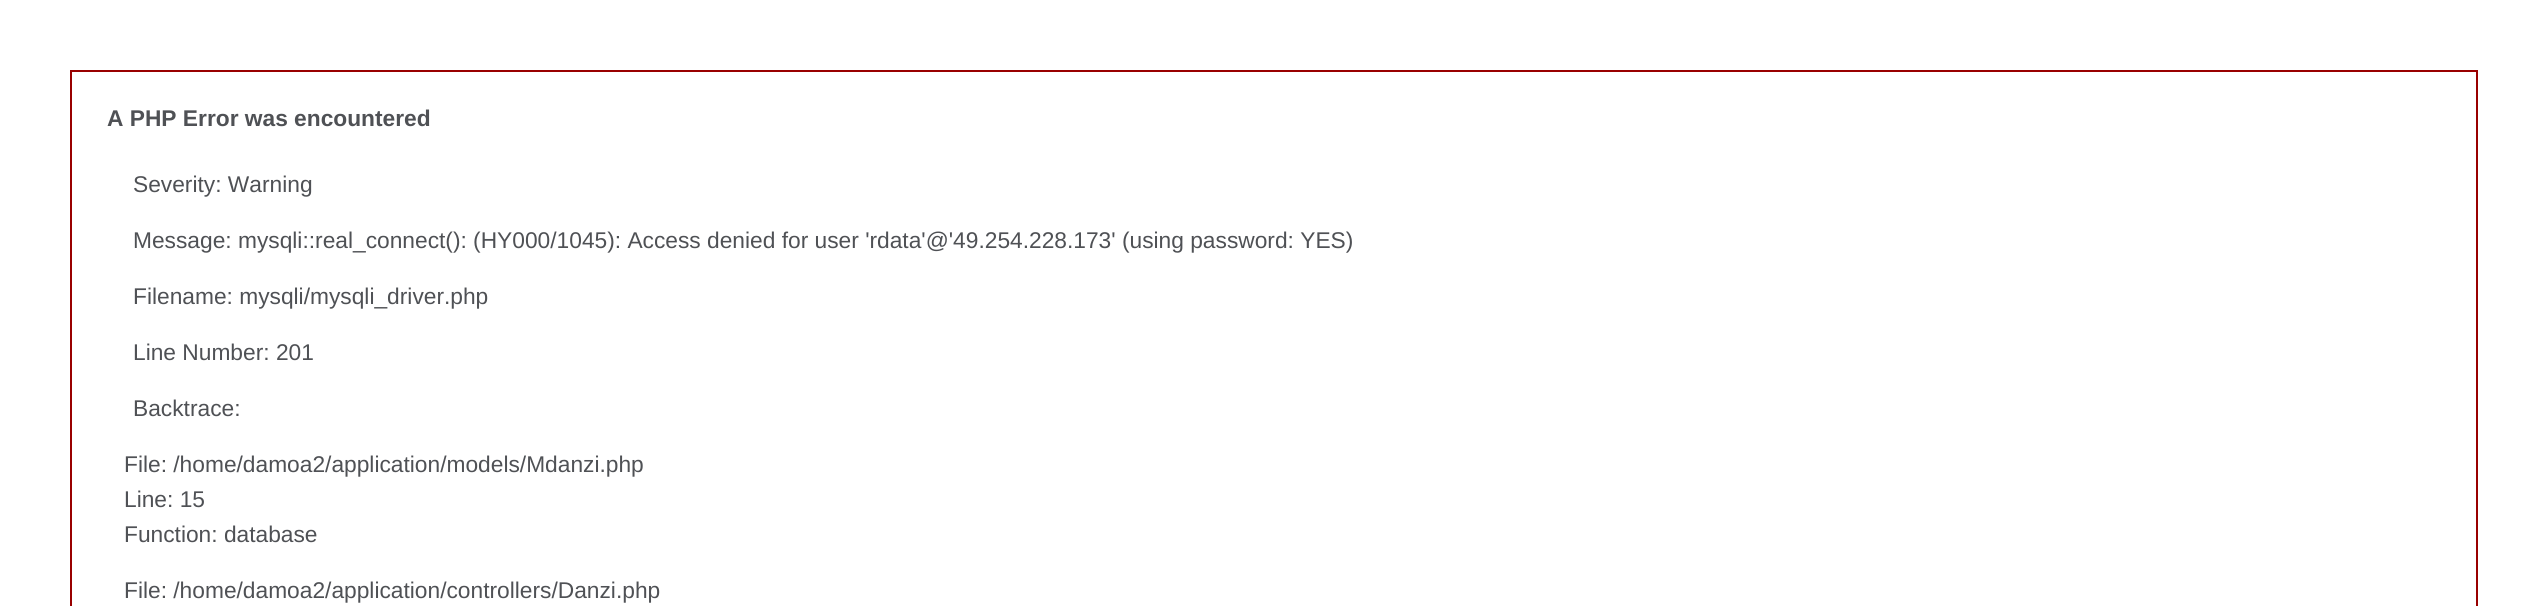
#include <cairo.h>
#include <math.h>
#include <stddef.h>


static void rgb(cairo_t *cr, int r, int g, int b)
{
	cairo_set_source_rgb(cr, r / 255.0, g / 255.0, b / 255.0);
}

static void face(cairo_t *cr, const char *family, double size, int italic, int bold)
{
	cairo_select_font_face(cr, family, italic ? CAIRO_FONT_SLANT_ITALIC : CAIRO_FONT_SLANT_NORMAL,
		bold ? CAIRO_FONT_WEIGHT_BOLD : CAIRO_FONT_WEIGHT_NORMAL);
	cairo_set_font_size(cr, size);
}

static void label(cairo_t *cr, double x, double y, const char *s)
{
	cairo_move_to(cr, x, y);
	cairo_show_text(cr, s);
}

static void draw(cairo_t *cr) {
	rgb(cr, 255, 255, 255);
	cairo_paint(cr);
	cairo_rectangle(cr, 71, 71, 2406, 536);
	rgb(cr, 153, 0, 0);
	cairo_stroke(cr);
	face(cr, "Liberation Sans", 22.75, 0, 1);
	rgb(cr, 79, 81, 85);
	label(cr, 107, 126, "A PHP Error was encountered");
	face(cr, "Liberation Sans", 22.75, 0, 0);
	label(cr, 133, 192, "Severity: Warning");
	label(cr, 133, 248, "Message: mysqli::real_connect(): (HY000/1045): Access denied for user 'rdata'@'49.254.228.173' (using password: YES)");
	label(cr, 133, 304, "Filename: mysqli/mysqli_driver.php");
	label(cr, 133, 360, "Line Number: 201");
	label(cr, 133, 416, "Backtrace:");
	label(cr, 124, 472, "File: /home/damoa2/application/models/Mdanzi.php");
	label(cr, 124, 507, "Line: 15");
	label(cr, 124, 542, "Function: database");
	label(cr, 124, 598, "File: /home/damoa2/application/controllers/Danzi.php");
}

int main(void) {
	cairo_surface_t *surface = cairo_image_surface_create(CAIRO_FORMAT_RGB24, 2547, 606);
	cairo_t *cr = cairo_create(surface);
	cairo_font_options_t *options = cairo_font_options_create();
	cairo_font_options_set_hint_metrics(options, CAIRO_HINT_METRICS_OFF);
	cairo_font_options_set_hint_style(options, CAIRO_HINT_STYLE_NONE);
	cairo_set_font_options(cr, options);
	cairo_set_miter_limit(cr, 4);
	draw(cr);
	cairo_surface_write_to_png(surface, "render.png");
	cairo_font_options_destroy(options);
	cairo_destroy(cr);
	cairo_surface_destroy(surface);
	return 0;
}
